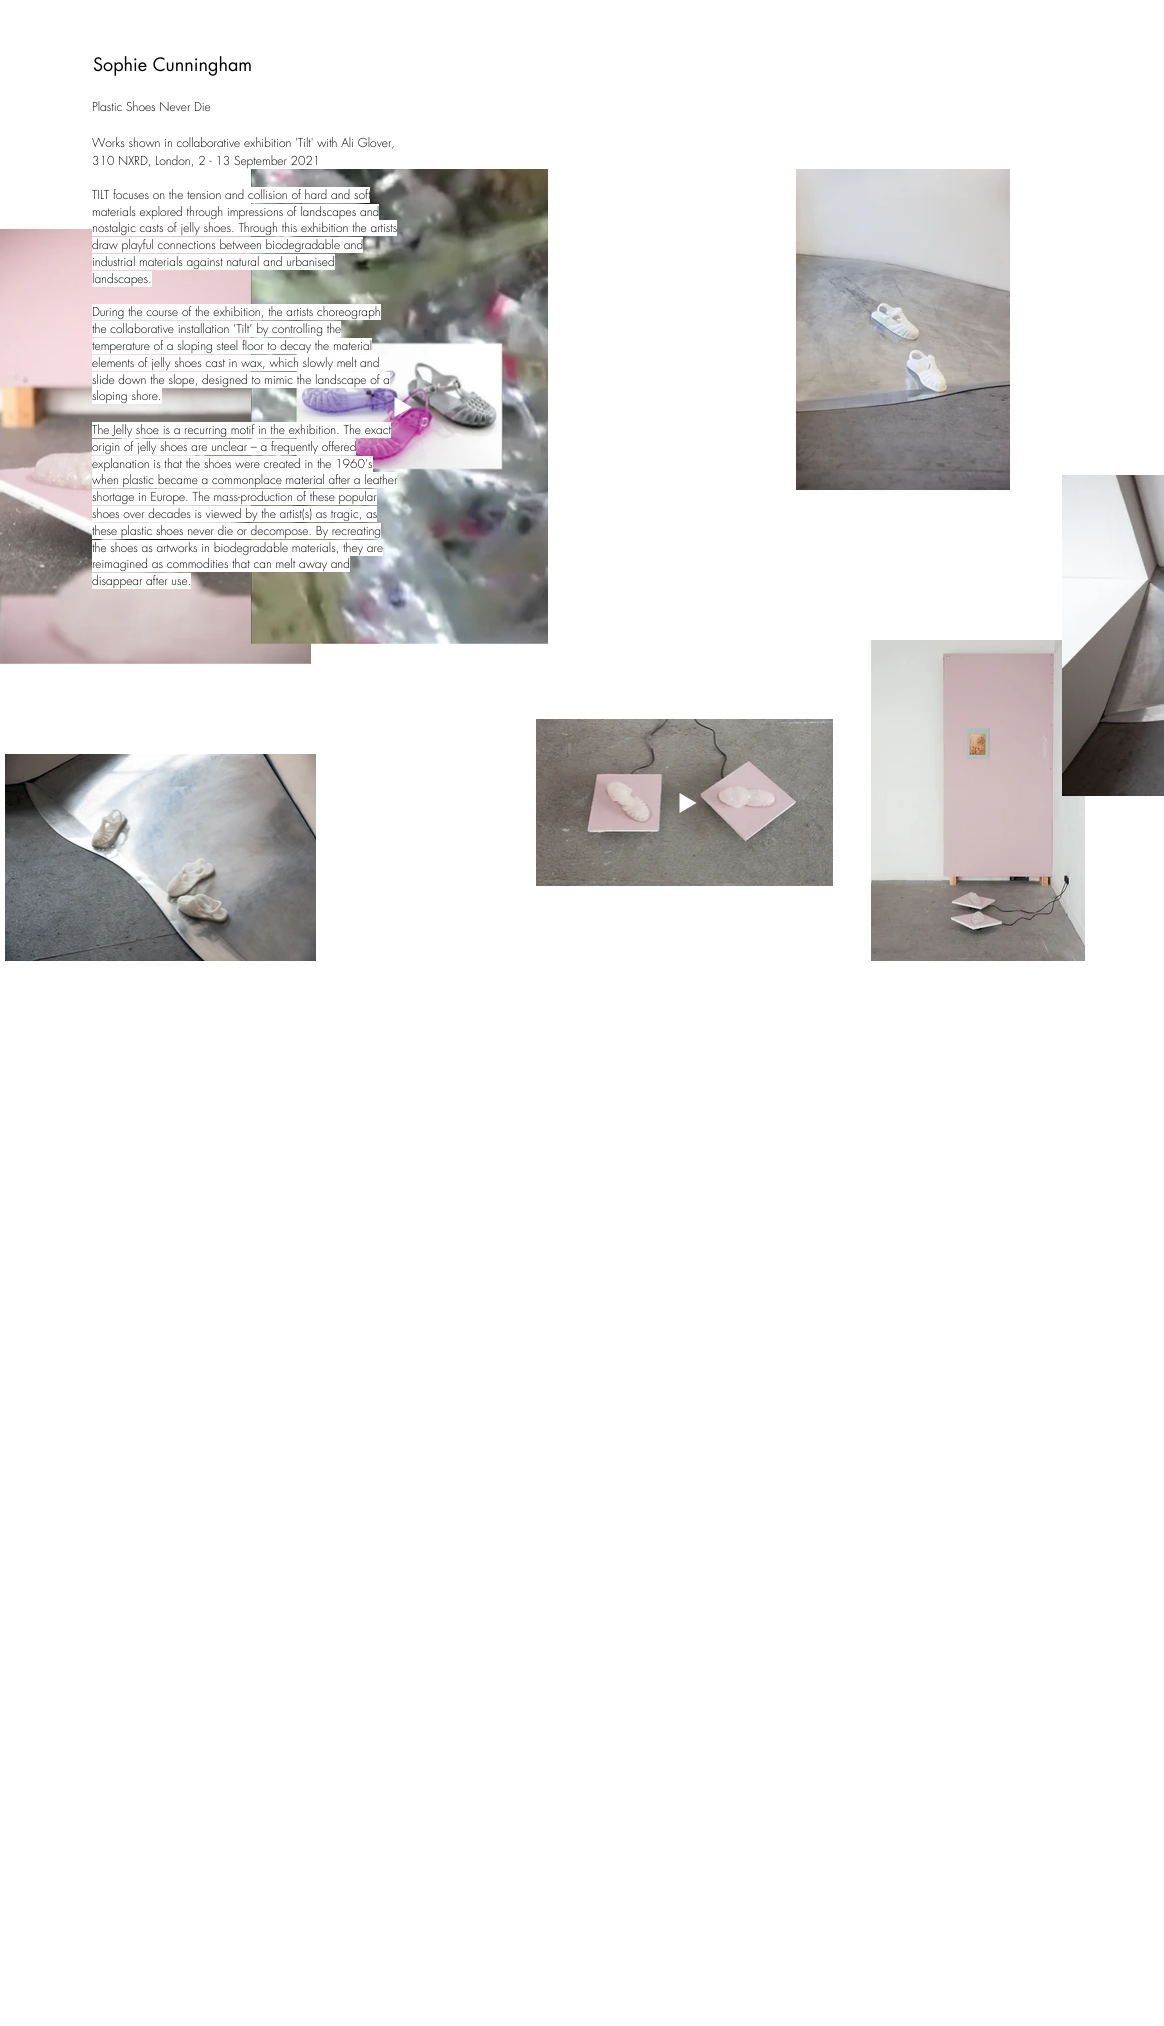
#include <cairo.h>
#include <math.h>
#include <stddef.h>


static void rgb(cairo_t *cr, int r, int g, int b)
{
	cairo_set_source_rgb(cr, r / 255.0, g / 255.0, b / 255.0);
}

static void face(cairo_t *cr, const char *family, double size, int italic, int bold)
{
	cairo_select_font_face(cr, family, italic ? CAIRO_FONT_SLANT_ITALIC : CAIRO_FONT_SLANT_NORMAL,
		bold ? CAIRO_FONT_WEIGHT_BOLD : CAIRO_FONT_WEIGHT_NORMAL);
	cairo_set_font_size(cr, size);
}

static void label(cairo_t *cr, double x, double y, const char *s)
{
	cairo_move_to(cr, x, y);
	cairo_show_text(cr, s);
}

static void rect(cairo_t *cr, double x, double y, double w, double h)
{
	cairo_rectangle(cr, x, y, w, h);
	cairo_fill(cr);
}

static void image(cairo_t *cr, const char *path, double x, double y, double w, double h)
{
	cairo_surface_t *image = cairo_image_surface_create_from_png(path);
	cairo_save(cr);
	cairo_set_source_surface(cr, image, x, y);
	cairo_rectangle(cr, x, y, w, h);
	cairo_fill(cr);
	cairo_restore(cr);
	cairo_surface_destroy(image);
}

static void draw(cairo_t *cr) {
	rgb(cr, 255, 255, 255);
	cairo_paint(cr);
	face(cr, "futura", 18, 0, 0);
	rgb(cr, 0, 0, 0);
	label(cr, 93, 71, "Sophie Cunningham");
	face(cr, "futura Light", 12, 0, 0);
	label(cr, 92, 111, "Plastic Shoes Never Die");
	label(cr, 92, 147, "Works shown in collaborative exhibition 'Tilt' with Ali Glover,");
	label(cr, 92, 165, "310 NXRD, London, 2 - 13 September 2021");
	image(cr, "image0.png", 0, 229, 311, 435);
	image(cr, "image2.png", 251, 169, 297, 475);
	rgb(cr, 255, 255, 255);
	rect(cr, 251, 187, 119, 16);
	rgb(cr, 0, 0, 0);
	label(cr, 92, 199, "TILT focuses on the tension and collision of hard and soft");
	rgb(cr, 255, 255, 255);
	rect(cr, 251, 204, 128, 16);
	rgb(cr, 0, 0, 0);
	label(cr, 92, 216, "materials explored through impressions of landscapes and");
	rgb(cr, 255, 255, 255);
	rect(cr, 92, 220, 305, 16);
	rgb(cr, 0, 0, 0);
	label(cr, 92, 232, "nostalgic casts of jelly shoes. Through this exhibition the artists");
	rgb(cr, 255, 255, 255);
	rect(cr, 92, 237, 271, 16);
	rgb(cr, 0, 0, 0);
	label(cr, 92, 249, "draw playful connections between biodegradable and");
	rgb(cr, 255, 255, 255);
	rect(cr, 92, 254, 243, 16);
	rgb(cr, 0, 0, 0);
	label(cr, 92, 266, "industrial materials against natural and urbanised");
	rgb(cr, 255, 255, 255);
	rect(cr, 92, 271, 60, 16);
	rgb(cr, 0, 0, 0);
	label(cr, 92, 283, "landscapes.");
	rgb(cr, 255, 255, 255);
	rect(cr, 92, 304, 289, 16);
	rgb(cr, 0, 0, 0);
	label(cr, 92, 316, "During the course of the exhibition, the artists choreograph");
	rgb(cr, 255, 255, 255);
	rect(cr, 92, 321, 249, 16);
	rgb(cr, 0, 0, 0);
	label(cr, 92, 333, "the collaborative installation ‘Tilt’ by controlling the");
	rgb(cr, 255, 255, 255);
	rect(cr, 92, 338, 280, 16);
	rgb(cr, 0, 0, 0);
	label(cr, 92, 350, "temperature of a sloping steel floor to decay the material");
	rgb(cr, 255, 255, 255);
	rect(cr, 92, 355, 287, 16);
	rgb(cr, 0, 0, 0);
	label(cr, 92, 367, "elements of jelly shoes cast in wax, which slowly melt and");
	rgb(cr, 255, 255, 255);
	rect(cr, 92, 372, 298, 16);
	rgb(cr, 0, 0, 0);
	label(cr, 92, 384, "slide down the slope, designed to mimic the landscape of a");
	rgb(cr, 255, 255, 255);
	rect(cr, 92, 388, 70, 16);
	rgb(cr, 0, 0, 0);
	label(cr, 92, 400, "sloping shore.");
	rgb(cr, 255, 255, 255);
	rect(cr, 92, 422, 299, 16);
	rgb(cr, 0, 0, 0);
	label(cr, 92, 434, "The Jelly shoe is a recurring motif in the exhibition. The exact");
	rgb(cr, 255, 255, 255);
	rect(cr, 92, 439, 264, 16);
	rgb(cr, 0, 0, 0);
	label(cr, 92, 451, "origin of jelly shoes are unclear – a frequently offered");
	rgb(cr, 255, 255, 255);
	rect(cr, 92, 456, 281, 16);
	rgb(cr, 0, 0, 0);
	label(cr, 92, 468, "explanation is that the shoes were created in the 1960’s");
	rgb(cr, 255, 255, 255);
	rect(cr, 92, 472, 305, 16);
	rgb(cr, 0, 0, 0);
	label(cr, 92, 484, "when plastic became a commonplace material after a leather");
	rgb(cr, 255, 255, 255);
	rect(cr, 92, 489, 285, 16);
	rgb(cr, 0, 0, 0);
	label(cr, 92, 501, "shortage in Europe. The mass-production of these popular");
	rgb(cr, 255, 255, 255);
	rect(cr, 92, 506, 285, 16);
	rgb(cr, 0, 0, 0);
	label(cr, 92, 518, "shoes over decades is viewed by the artist(s) as tragic, as");
	rgb(cr, 255, 255, 255);
	rect(cr, 92, 523, 289, 16);
	rgb(cr, 0, 0, 0);
	label(cr, 92, 535, "these plastic shoes never die or decompose. By recreating");
	rgb(cr, 255, 255, 255);
	rect(cr, 92, 540, 291, 16);
	rgb(cr, 0, 0, 0);
	label(cr, 92, 552, "the shoes as artworks in biodegradable materials, they are");
	rgb(cr, 255, 255, 255);
	rect(cr, 92, 556, 258, 16);
	rgb(cr, 0, 0, 0);
	label(cr, 92, 568, "reimagined as commodities that can melt away and");
	rgb(cr, 255, 255, 255);
	rect(cr, 92, 573, 99, 16);
	rgb(cr, 0, 0, 0);
	label(cr, 92, 585, "disappear after use.");
	image(cr, "image1.png", 5, 754, 311, 207);
	rgb(cr, 255, 255, 255);
	cairo_new_path(cr);
	cairo_move_to(cr, 411.5, 407);
	cairo_line_to(cr, 394.5, 417);
	cairo_line_to(cr, 394.5, 397);
	cairo_close_path(cr);
	cairo_fill(cr);
	image(cr, "image3.png", 536, 719, 297, 167);
	cairo_new_path(cr);
	cairo_move_to(cr, 696.5, 803);
	cairo_line_to(cr, 679.5, 813);
	cairo_line_to(cr, 679.5, 793);
	cairo_close_path(cr);
	cairo_fill(cr);
	image(cr, "image4.png", 796, 169, 214, 321);
	image(cr, "image5.png", 871, 640, 214, 321);
	image(cr, "image6.png", 1062, 475, 102, 321);
}

int main(void) {
	cairo_surface_t *surface = cairo_image_surface_create(CAIRO_FORMAT_RGB24, 1164, 2026);
	cairo_t *cr = cairo_create(surface);
	cairo_font_options_t *options = cairo_font_options_create();
	cairo_font_options_set_hint_metrics(options, CAIRO_HINT_METRICS_OFF);
	cairo_font_options_set_hint_style(options, CAIRO_HINT_STYLE_NONE);
	cairo_set_font_options(cr, options);
	cairo_set_miter_limit(cr, 4);
	draw(cr);
	cairo_surface_write_to_png(surface, "render.png");
	cairo_font_options_destroy(options);
	cairo_destroy(cr);
	cairo_surface_destroy(surface);
	return 0;
}
